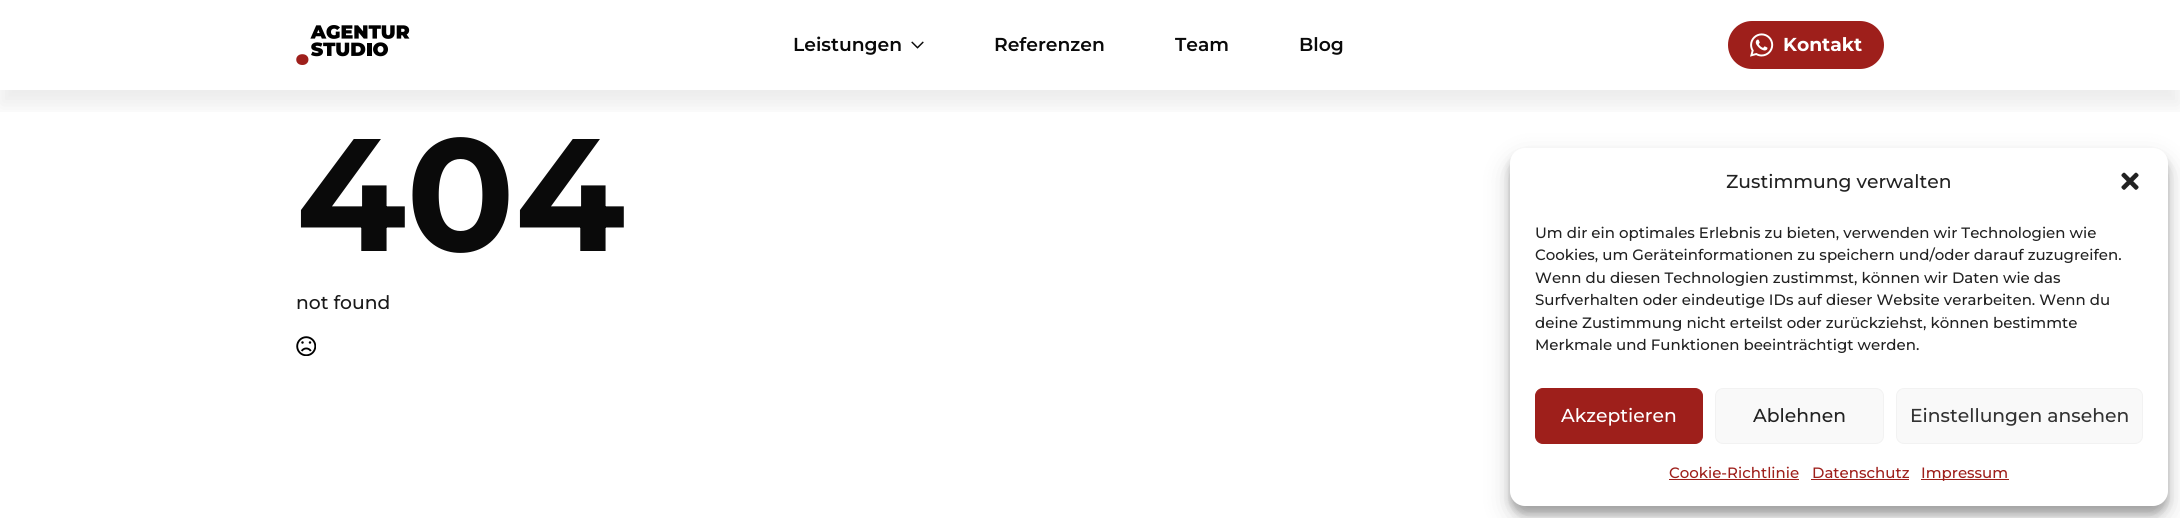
#include <cairo.h>
#include <math.h>
#include <stddef.h>


static void rgb(cairo_t *cr, int r, int g, int b)
{
	cairo_set_source_rgb(cr, r / 255.0, g / 255.0, b / 255.0);
}

static void face(cairo_t *cr, const char *family, double size, int italic, int bold)
{
	cairo_select_font_face(cr, family, italic ? CAIRO_FONT_SLANT_ITALIC : CAIRO_FONT_SLANT_NORMAL,
		bold ? CAIRO_FONT_WEIGHT_BOLD : CAIRO_FONT_WEIGHT_NORMAL);
	cairo_set_font_size(cr, size);
}

static void label(cairo_t *cr, double x, double y, const char *s)
{
	cairo_move_to(cr, x, y);
	cairo_show_text(cr, s);
}

static void rect(cairo_t *cr, double x, double y, double w, double h)
{
	cairo_rectangle(cr, x, y, w, h);
	cairo_fill(cr);
}

static void rrect(cairo_t *cr, double x, double y, double w, double h, double r)
{
	cairo_new_sub_path(cr);
	cairo_arc(cr, x + w - r, y + h - r, r, 0, M_PI / 2);
	cairo_arc(cr, x + r, y + h - r, r, M_PI / 2, M_PI);
	cairo_arc(cr, x + r, y + r, r, M_PI, 1.5 * M_PI);
	cairo_arc(cr, x + w - r, y + r, r, 1.5 * M_PI, 2 * M_PI);
	cairo_close_path(cr);
}

static void soft_shadow(cairo_t *cr, double x, double y, double w, double h, double r, double blur, double alpha)
{
	cairo_push_group_with_content(cr, CAIRO_CONTENT_ALPHA);
	cairo_set_operator(cr, CAIRO_OPERATOR_SOURCE);
	for (int i = 15; i >= -15 && fmin(w, h) + blur * i / 3 > 0; i -= 2) {
		double e = blur * i / 6;
		cairo_set_source_rgba(cr, 0, 0, 0, alpha * erfc((i - 1) / 8.5) / 2);
		rrect(cr, x - e, y - e, w + 2 * e, h + 2 * e, fmax(0, fmin(r + e + blur * .6, fmin(w, h) / 2 + e)));
		cairo_fill(cr);
	}
	cairo_pattern_t *soft = cairo_pop_group(cr);
	cairo_mask(cr, soft);
	cairo_pattern_destroy(soft);
}

static void image(cairo_t *cr, const char *path, double x, double y, double w, double h)
{
	cairo_surface_t *image = cairo_image_surface_create_from_png(path);
	cairo_save(cr);
	cairo_set_source_surface(cr, image, x, y);
	cairo_rectangle(cr, x, y, w, h);
	cairo_fill(cr);
	cairo_restore(cr);
	cairo_surface_destroy(image);
}

static void draw(cairo_t *cr) {
	rgb(cr, 255, 255, 255);
	cairo_paint(cr);
	cairo_save(cr);
	cairo_rectangle(cr, 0, 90, 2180, 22);
	cairo_clip(cr);
	rgb(cr, 0, 0, 0);
	soft_shadow(cr, 0, 15, 2180, 90, 0, 10, 0.08);
	cairo_restore(cr);
	image(cr, "image0.png", 296, 25, 114, 40);
	face(cr, "Montserrat SemiBold", 18.75, 0, 0);
	rgb(cr, 10, 10, 10);
	label(cr, 793, 51, "Leistungen");
	image(cr, "image1.png", 911, 41, 13, 8);
	label(cr, 994, 51, "Referenzen");
	label(cr, 1175, 51, "Team");
	label(cr, 1299, 51, "Blog");
	rgb(cr, 158, 31, 27);
	rrect(cr, 1728, 21, 156, 48, 24);
	cairo_fill(cr);
	image(cr, "image2.png", 1750, 33, 24, 24);
	face(cr, "Montserrat", 18.75, 0, 1);
	rgb(cr, 255, 255, 255);
	label(cr, 1783, 51, "Kontakt");
	face(cr, "Montserrat", 160, 0, 1);
	rgb(cr, 10, 10, 10);
	label(cr, 296, 251, "404");
	face(cr, "Montserrat Medium", 18.75, 0, 0);
	rgb(cr, 26, 26, 26);
	label(cr, 296, 309, "not found");
	image(cr, "image3.png", 296, 336, 20, 20);
	rgb(cr, 0, 0, 0);
	soft_shadow(cr, 1510, 155, 658, 359, 15, 4, 0.23);
	soft_shadow(cr, 1510, 160, 658, 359, 15, 12.5, 0.19);
	rgb(cr, 255, 255, 255);
	rrect(cr, 1510, 148, 658, 358, 15);
	cairo_fill(cr);
	rgb(cr, 34, 34, 34);
	label(cr, 1726, 188, "Zustimmung verwalten");
	image(cr, "image4.png", 2121, 172, 18, 18);
	face(cr, "Montserrat Medium", 15, 0, 0);
	label(cr, 1535, 238, "Um dir ein optimales Erlebnis zu bieten, verwenden wir Technologien wie");
	label(cr, 1535, 260, "Cookies, um Geräteinformationen zu speichern und/oder darauf zuzugreifen.");
	label(cr, 1535, 283, "Wenn du diesen Technologien zustimmst, können wir Daten wie das");
	label(cr, 1535, 305, "Surfverhalten oder eindeutige IDs auf dieser Website verarbeiten. Wenn du");
	label(cr, 1535, 328, "deine Zustimmung nicht erteilst oder zurückziehst, können bestimmte");
	label(cr, 1535, 350, "Merkmale und Funktionen beeinträchtigt werden.");
	rgb(cr, 158, 31, 27);
	rrect(cr, 1535.5, 388.5, 167, 55, 7.5);
	cairo_fill_preserve(cr);
	cairo_set_line_width(cr, 1);
	cairo_stroke(cr);
	face(cr, "Montserrat Medium", 18.75, 0, 0);
	rgb(cr, 255, 255, 255);
	label(cr, 1561, 422, "Akzeptieren");
	rgb(cr, 249, 249, 249);
	rrect(cr, 1715.5, 388.5, 168, 55, 7.5);
	cairo_fill_preserve(cr);
	rgb(cr, 242, 242, 242);
	cairo_stroke(cr);
	rgb(cr, 34, 34, 34);
	label(cr, 1753, 422, "Ablehnen");
	rgb(cr, 249, 249, 249);
	rrect(cr, 1896.5, 388.5, 246, 55, 7.5);
	cairo_fill_preserve(cr);
	rgb(cr, 242, 242, 242);
	cairo_stroke(cr);
	rgb(cr, 51, 51, 51);
	label(cr, 1910, 422, "Einstellungen ansehen");
	face(cr, "Montserrat Medium", 15, 0, 0);
	rgb(cr, 158, 31, 27);
	label(cr, 1669, 478, "Cookie-Richtlinie");
	rect(cr, 1669, 479, 130, 1);
	label(cr, 1812, 478, "Datenschutz");
	rect(cr, 1811, 479, 98, 1);
	rect(cr, 1921, 479, 88, 1);
	label(cr, 1921, 478, "Impressum");
}

int main(void) {
	cairo_surface_t *surface = cairo_image_surface_create(CAIRO_FORMAT_RGB24, 2180, 518);
	cairo_t *cr = cairo_create(surface);
	cairo_font_options_t *options = cairo_font_options_create();
	cairo_font_options_set_hint_metrics(options, CAIRO_HINT_METRICS_OFF);
	cairo_font_options_set_hint_style(options, CAIRO_HINT_STYLE_NONE);
	cairo_set_font_options(cr, options);
	cairo_set_miter_limit(cr, 4);
	draw(cr);
	cairo_surface_write_to_png(surface, "render.png");
	cairo_font_options_destroy(options);
	cairo_destroy(cr);
	cairo_surface_destroy(surface);
	return 0;
}
